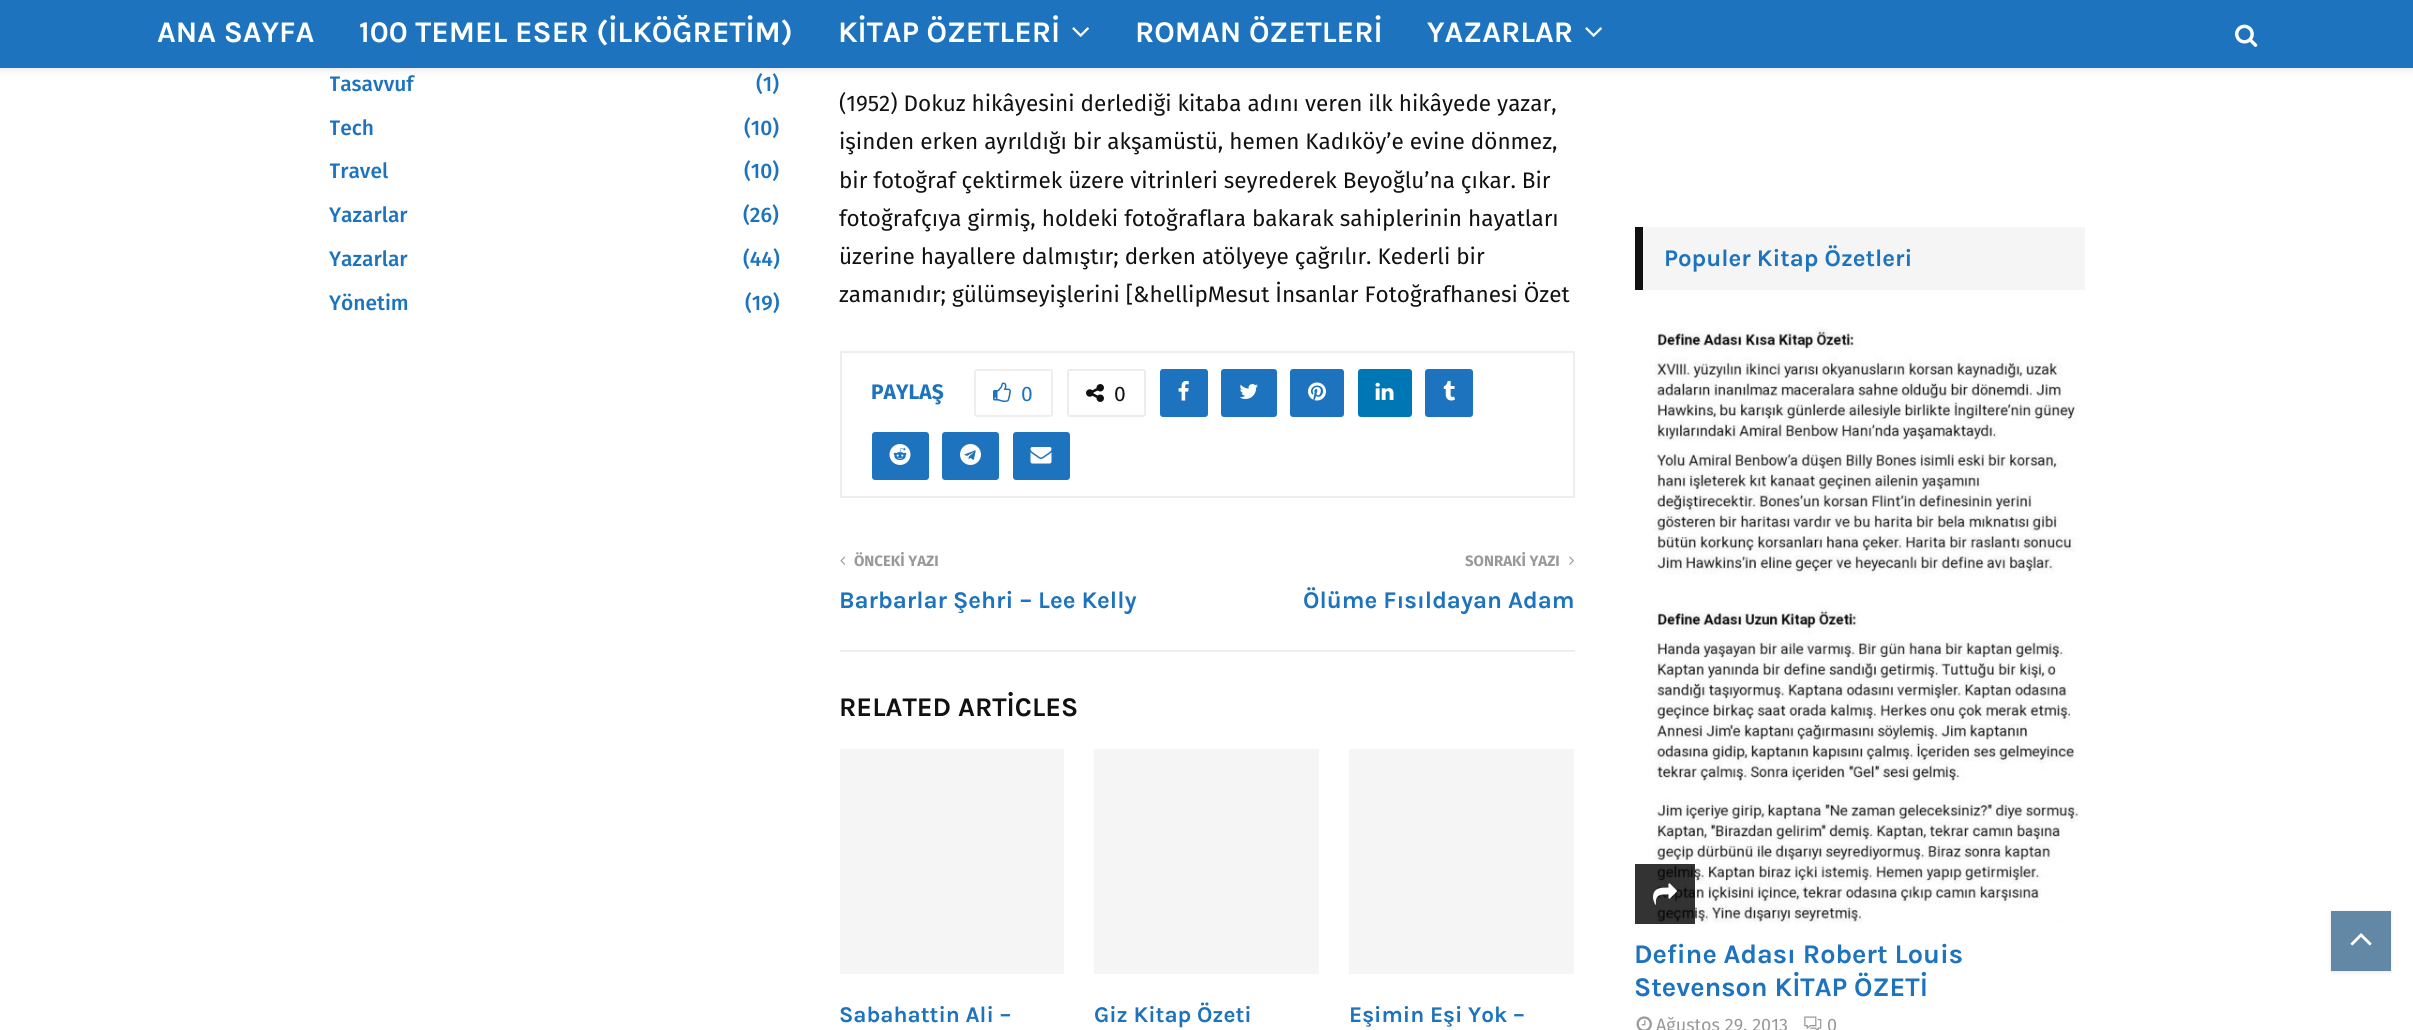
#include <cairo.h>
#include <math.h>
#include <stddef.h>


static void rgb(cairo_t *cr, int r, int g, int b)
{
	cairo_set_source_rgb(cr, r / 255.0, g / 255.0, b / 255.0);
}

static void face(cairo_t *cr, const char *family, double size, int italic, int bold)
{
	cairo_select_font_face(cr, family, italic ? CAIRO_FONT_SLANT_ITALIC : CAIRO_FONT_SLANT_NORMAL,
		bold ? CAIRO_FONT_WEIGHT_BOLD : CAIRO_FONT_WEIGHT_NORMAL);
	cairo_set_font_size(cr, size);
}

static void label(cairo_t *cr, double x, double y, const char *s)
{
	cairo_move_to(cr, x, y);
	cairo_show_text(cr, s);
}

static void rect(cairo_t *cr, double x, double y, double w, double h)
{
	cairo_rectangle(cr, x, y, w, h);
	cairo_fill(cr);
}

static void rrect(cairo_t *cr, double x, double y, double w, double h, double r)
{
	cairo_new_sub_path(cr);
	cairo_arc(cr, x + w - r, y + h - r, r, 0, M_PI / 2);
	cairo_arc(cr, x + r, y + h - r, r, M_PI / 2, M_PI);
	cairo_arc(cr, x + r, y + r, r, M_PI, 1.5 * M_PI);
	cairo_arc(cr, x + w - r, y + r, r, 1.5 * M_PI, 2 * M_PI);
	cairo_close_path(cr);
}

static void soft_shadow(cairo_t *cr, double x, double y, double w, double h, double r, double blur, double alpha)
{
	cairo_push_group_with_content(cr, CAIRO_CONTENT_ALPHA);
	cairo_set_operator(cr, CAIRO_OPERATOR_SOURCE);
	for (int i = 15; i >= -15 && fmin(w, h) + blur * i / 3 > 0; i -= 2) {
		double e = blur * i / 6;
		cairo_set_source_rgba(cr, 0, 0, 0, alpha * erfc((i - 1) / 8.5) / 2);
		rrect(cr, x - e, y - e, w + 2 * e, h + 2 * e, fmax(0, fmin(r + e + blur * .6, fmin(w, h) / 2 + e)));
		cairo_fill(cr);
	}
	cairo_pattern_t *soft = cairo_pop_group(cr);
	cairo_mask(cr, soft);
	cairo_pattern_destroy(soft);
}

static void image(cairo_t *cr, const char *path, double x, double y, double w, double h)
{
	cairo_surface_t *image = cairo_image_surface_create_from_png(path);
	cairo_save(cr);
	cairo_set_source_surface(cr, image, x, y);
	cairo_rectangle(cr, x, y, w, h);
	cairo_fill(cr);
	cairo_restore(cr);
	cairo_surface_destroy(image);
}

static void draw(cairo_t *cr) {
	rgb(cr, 255, 255, 255);
	cairo_paint(cr);
	rgb(cr, 190, 190, 190);
	soft_shadow(cr, 0, 2, 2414, 67, 0, 4, 0.46);
	rgb(cr, 30, 115, 190);
	rect(cr, 0, 0, 2413, 68);
	face(cr, "Karla", 30, 0, 1);
	rgb(cr, 255, 255, 255);
	label(cr, 157, 42, "ANA SAYFA");
	label(cr, 359, 42, "100 TEMEL ESER (İLKÖĞRETİM)");
	label(cr, 838, 42, "KİTAP ÖZETLERİ");
	image(cr, "image0.png", 1072, 27, 17, 10);
	label(cr, 1135, 42, "ROMAN ÖZETLERİ");
	label(cr, 1427, 42, "YAZARLAR");
	image(cr, "image0.png", 1585, 27, 17, 10);
	image(cr, "image1.png", 2235, 24, 23, 23);
	cairo_save(cr);
	cairo_rectangle(cr, 330, 72, 449, 36);
	cairo_clip(cr);
	face(cr, "Fira Sans Medium", 21, 0, 0);
	rgb(cr, 30, 115, 190);
	label(cr, 329, 91, "Tasavvuf");
	cairo_restore(cr);
	face(cr, "Fira Sans Medium", 21, 0, 0);
	rgb(cr, 30, 115, 190);
	label(cr, 756, 91, "(1)");
	cairo_save(cr);
	cairo_rectangle(cr, 330, 116, 449, 36);
	cairo_clip(cr);
	label(cr, 329, 135, "Tech");
	cairo_restore(cr);
	label(cr, 744, 135, "(10)");
	cairo_save(cr);
	cairo_rectangle(cr, 330, 159, 449, 36);
	cairo_clip(cr);
	label(cr, 329, 178, "Travel");
	cairo_restore(cr);
	label(cr, 744, 178, "(10)");
	label(cr, 329, 222, "Yazarlar");
	label(cr, 743, 222, "(26)");
	label(cr, 329, 266, "Yazarlar");
	label(cr, 743, 266, "(44)");
	label(cr, 329, 310, "Yönetim");
	label(cr, 745, 310, "(19)");
	face(cr, "Fira Sans", 22.5, 0, 0);
	rgb(cr, 17, 17, 17);
	label(cr, 839, 111, "(1952) Dokuz hikâyesini derlediği kitaba adını veren ilk hikâyede yazar,");
	label(cr, 839, 149, "işinden erken ayrıldığı bir akşamüstü, hemen Kadıköy’e evine dönmez,");
	label(cr, 839, 188, "bir fotoğraf çektirmek üzere vitrinleri seyrederek Beyoğlu’na çıkar. Bir");
	label(cr, 839, 226, "fotoğrafçıya girmiş, holdeki fotoğraflara bakarak sahiplerinin hayatları");
	label(cr, 839, 264, "üzerine hayallere dalmıştır; derken atölyeye çağrılır. Kederli bir");
	label(cr, 839, 302, "zamanıdır; gülümseyişlerini [&hellipMesut İnsanlar Fotoğrafhanesi Özet");
	cairo_rectangle(cr, 841, 352, 733, 145);
	rgb(cr, 238, 238, 238);
	cairo_stroke(cr);
	face(cr, "Fira Sans", 21, 0, 1);
	rgb(cr, 30, 115, 190);
	label(cr, 871, 399, "PAYLAŞ");
	rrect(cr, 975, 370, 77, 46, 2);
	rgb(cr, 238, 238, 238);
	cairo_stroke(cr);
	image(cr, "image2.png", 993, 382, 18, 20);
	face(cr, "Fira Sans", 21, 0, 0);
	rgb(cr, 30, 115, 190);
	label(cr, 1021, 401, "0");
	rrect(cr, 1068, 370, 77, 46, 2);
	rgb(cr, 236, 236, 236);
	cairo_stroke(cr);
	image(cr, "image3.png", 1086, 384, 18, 18);
	rgb(cr, 17, 17, 17);
	label(cr, 1114, 401, "0");
	rgb(cr, 30, 115, 190);
	rrect(cr, 1160, 369, 48, 48, 3);
	cairo_fill(cr);
	image(cr, "image4.png", 1178, 381, 11, 20);
	rrect(cr, 1221, 369, 56, 48, 3);
	cairo_fill(cr);
	image(cr, "image5.png", 1239, 384, 19, 15);
	rrect(cr, 1290, 369, 54, 48, 3);
	cairo_fill(cr);
	image(cr, "image6.png", 1308, 382, 18, 19);
	rgb(cr, 0, 119, 181);
	rrect(cr, 1358, 369, 54, 48, 3);
	cairo_fill(cr);
	image(cr, "image7.png", 1375, 382, 19, 18);
	rgb(cr, 30, 115, 190);
	rrect(cr, 1425, 369, 48, 48, 3);
	cairo_fill(cr);
	image(cr, "image8.png", 1443, 381, 12, 20);
	rrect(cr, 872, 432, 57, 48, 3);
	cairo_fill(cr);
	image(cr, "image9.png", 889, 444, 22, 21);
	rrect(cr, 942, 432, 57, 48, 3);
	cairo_fill(cr);
	image(cr, "image10.png", 960, 444, 21, 21);
	rrect(cr, 1013, 432, 57, 48, 3);
	cairo_fill(cr);
	image(cr, "image11.png", 1030, 447, 22, 17);
	rgb(cr, 238, 238, 238);
	rect(cr, 840, 650, 735, 2);
	image(cr, "image12.png", 840, 556, 6, 9);
	face(cr, "Fira Sans", 15, 0, 1);
	rgb(cr, 153, 153, 153);
	label(cr, 854, 566, "ÖNCEKİ YAZI");
	face(cr, "Karla", 24, 0, 1);
	rgb(cr, 30, 115, 190);
	label(cr, 839, 608, "Barbarlar Şehri – Lee Kelly");
	face(cr, "Fira Sans", 15, 0, 1);
	rgb(cr, 153, 153, 153);
	label(cr, 1465, 566, "SONRAKİ YAZI");
	image(cr, "image13.png", 1569, 556, 5, 9);
	face(cr, "Karla", 24, 0, 1);
	rgb(cr, 30, 115, 190);
	label(cr, 1303, 608, "Ölüme Fısıldayan Adam");
	face(cr, "Karla", 27, 0, 1);
	rgb(cr, 17, 17, 17);
	label(cr, 839, 716, "RELATED ARTİCLES");
	rgb(cr, 245, 245, 245);
	rect(cr, 840, 749, 224, 225);
	face(cr, "Karla", 22.5, 0, 1);
	rgb(cr, 30, 115, 190);
	label(cr, 839, 1022, "Sabahattin Ali –");
	rgb(cr, 245, 245, 245);
	rect(cr, 1094, 749, 225, 225);
	rgb(cr, 30, 115, 190);
	label(cr, 1094, 1022, "Giz Kitap Özeti");
	rgb(cr, 245, 245, 245);
	rect(cr, 1349, 749, 225, 225);
	rgb(cr, 30, 115, 190);
	label(cr, 1349, 1022, "Eşimin Eşi Yok –");
	rgb(cr, 245, 245, 245);
	rect(cr, 1643, 227, 442, 63);
	rgb(cr, 17, 17, 17);
	rect(cr, 1635, 227, 8, 63);
	face(cr, "Karla", 24, 0, 1);
	rgb(cr, 30, 115, 190);
	label(cr, 1664, 266, "Populer Kitap Özetleri");
	image(cr, "image14.png", 1635, 320, 450, 604);
	cairo_set_source_rgba(cr, 0, 0, 0, 0.8);
	rect(cr, 1635, 864, 60, 60);
	image(cr, "image15.png", 1653, 883, 24, 22);
	face(cr, "Karla", 27, 0, 1);
	rgb(cr, 30, 115, 190);
	label(cr, 1634, 963, "Define Adası Robert Louis");
	label(cr, 1634, 996, "Stevenson KİTAP ÖZETİ");
	image(cr, "image16.png", 1636, 1016, 16, 14);
	face(cr, "Fira Sans", 18, 0, 0);
	rgb(cr, 153, 153, 153);
	label(cr, 1656, 1031, "Ağustos 29, 2013");
	image(cr, "image17.png", 1804, 1016, 18, 14);
	label(cr, 1827, 1031, "0");
	rgb(cr, 0, 0, 0);
	soft_shadow(cr, 2331, 912, 60, 60, 0, 1.5, 0.1);
	rgb(cr, 98, 136, 165);
	rect(cr, 2331, 911, 60, 60);
	image(cr, "image18.png", 2350, 933, 22, 13);
}

int main(void) {
	cairo_surface_t *surface = cairo_image_surface_create(CAIRO_FORMAT_RGB24, 2413, 1030);
	cairo_t *cr = cairo_create(surface);
	cairo_font_options_t *options = cairo_font_options_create();
	cairo_font_options_set_hint_metrics(options, CAIRO_HINT_METRICS_OFF);
	cairo_font_options_set_hint_style(options, CAIRO_HINT_STYLE_NONE);
	cairo_set_font_options(cr, options);
	cairo_set_miter_limit(cr, 4);
	draw(cr);
	cairo_surface_write_to_png(surface, "render.png");
	cairo_font_options_destroy(options);
	cairo_destroy(cr);
	cairo_surface_destroy(surface);
	return 0;
}
